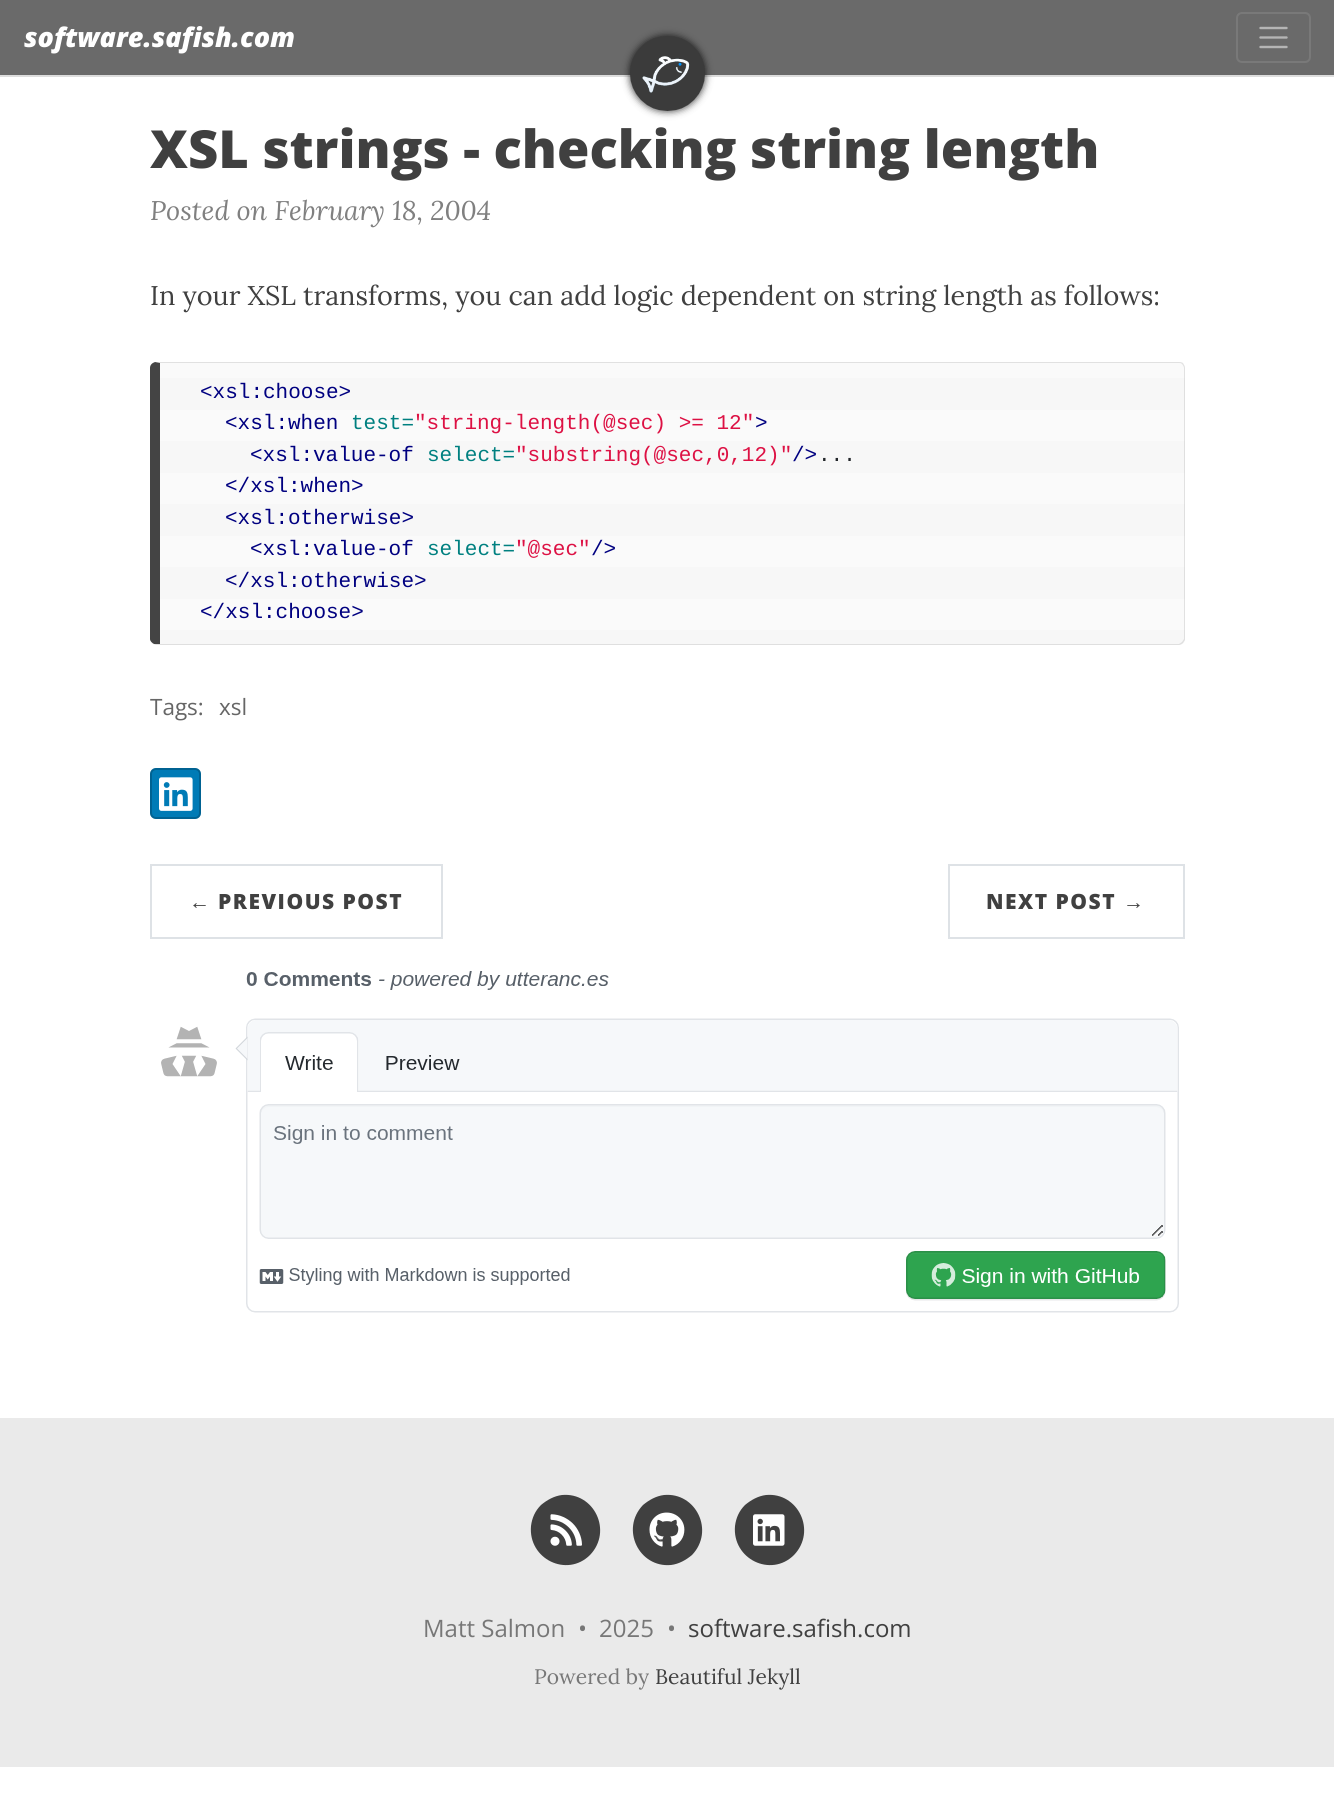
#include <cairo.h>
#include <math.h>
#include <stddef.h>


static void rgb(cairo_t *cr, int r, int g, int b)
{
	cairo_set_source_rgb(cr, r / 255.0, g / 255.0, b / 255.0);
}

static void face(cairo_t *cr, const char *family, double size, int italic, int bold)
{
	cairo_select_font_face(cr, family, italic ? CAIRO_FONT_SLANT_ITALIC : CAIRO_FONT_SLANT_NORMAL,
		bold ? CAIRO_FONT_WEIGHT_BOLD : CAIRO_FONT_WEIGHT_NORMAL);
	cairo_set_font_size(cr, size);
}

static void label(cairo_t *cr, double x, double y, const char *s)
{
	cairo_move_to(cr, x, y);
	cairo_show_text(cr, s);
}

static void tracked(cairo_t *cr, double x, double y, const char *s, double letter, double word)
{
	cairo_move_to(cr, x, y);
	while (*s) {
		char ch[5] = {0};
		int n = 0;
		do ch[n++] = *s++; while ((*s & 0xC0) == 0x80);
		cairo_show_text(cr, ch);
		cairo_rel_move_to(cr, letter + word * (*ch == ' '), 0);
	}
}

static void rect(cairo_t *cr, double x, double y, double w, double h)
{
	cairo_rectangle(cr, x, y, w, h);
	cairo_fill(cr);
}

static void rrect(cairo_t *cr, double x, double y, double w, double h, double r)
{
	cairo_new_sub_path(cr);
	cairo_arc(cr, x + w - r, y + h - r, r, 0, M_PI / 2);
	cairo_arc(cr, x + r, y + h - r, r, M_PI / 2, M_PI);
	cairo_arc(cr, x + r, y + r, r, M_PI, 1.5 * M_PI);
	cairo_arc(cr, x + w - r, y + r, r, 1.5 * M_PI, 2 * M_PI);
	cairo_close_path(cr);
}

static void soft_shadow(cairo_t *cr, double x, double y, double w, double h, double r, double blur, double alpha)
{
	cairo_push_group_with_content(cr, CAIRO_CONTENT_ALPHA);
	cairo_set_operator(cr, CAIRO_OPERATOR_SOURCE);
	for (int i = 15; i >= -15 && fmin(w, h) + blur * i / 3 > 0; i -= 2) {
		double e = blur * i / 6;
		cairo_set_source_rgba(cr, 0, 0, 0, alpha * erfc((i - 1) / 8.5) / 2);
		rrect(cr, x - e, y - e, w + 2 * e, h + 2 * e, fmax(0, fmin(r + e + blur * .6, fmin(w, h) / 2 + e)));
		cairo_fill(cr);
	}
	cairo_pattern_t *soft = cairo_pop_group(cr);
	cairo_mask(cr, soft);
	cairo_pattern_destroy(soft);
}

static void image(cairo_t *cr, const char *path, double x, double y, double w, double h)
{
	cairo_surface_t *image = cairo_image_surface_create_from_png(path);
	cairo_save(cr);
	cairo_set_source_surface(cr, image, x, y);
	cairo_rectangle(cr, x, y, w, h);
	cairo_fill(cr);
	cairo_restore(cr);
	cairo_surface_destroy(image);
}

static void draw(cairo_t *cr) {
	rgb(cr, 255, 255, 255);
	cairo_paint(cr);
	rgb(cr, 106, 106, 106);
	rect(cr, 0, 0, 1334, 75);
	rgb(cr, 221, 221, 221);
	rect(cr, 0, 75, 1334, 2);
	face(cr, "Open Sans ExtraBold", 27, 1, 0);
	rgb(cr, 255, 255, 255);
	label(cr, 24, 47, "software.safish.com");
	rgb(cr, 0, 0, 0);
	soft_shadow(cr, 630, 36, 75, 75, 37.5, 4, 0.8);
	image(cr, "image0.png", 630, 36, 75, 75);
	rrect(cr, 1237, 13, 73, 49, 5);
	rgb(cr, 121, 121, 121);
	cairo_stroke(cr);
	cairo_new_path(cr);
	cairo_move_to(cr, 1260.5, 28);
	cairo_line_to(cr, 1286.5, 28);
	cairo_move_to(cr, 1260.5, 37.5);
	cairo_line_to(cr, 1286.5, 37.5);
	cairo_move_to(cr, 1260.5, 47);
	cairo_line_to(cr, 1286.5, 47);
	rgb(cr, 181, 181, 181);
	cairo_set_line_width(cr, 2.4);
	cairo_set_line_cap(cr, CAIRO_LINE_CAP_ROUND);
	cairo_stroke(cr);
	face(cr, "Open Sans ExtraBold", 52.5, 0, 0);
	rgb(cr, 64, 64, 64);
	label(cr, 150, 168, "XSL strings - checking string length");
	face(cr, "Lora", 27, 1, 0);
	rgb(cr, 128, 128, 128);
	label(cr, 150, 220, "Posted on February 18, 2004");
	face(cr, "Lora", 27, 0, 0);
	rgb(cr, 64, 64, 64);
	label(cr, 150, 305, "In your XSL transforms, you can add logic dependent on string length as follows:");
	rgb(cr, 250, 250, 250);
	cairo_new_path(cr);
	cairo_move_to(cr, 156, 362);
	cairo_line_to(cr, 1179, 362);
	cairo_curve_to(cr, 1182.5, 362, 1185, 364.5, 1185, 368);
	cairo_line_to(cr, 1185, 378);
	cairo_line_to(cr, 150, 378);
	cairo_line_to(cr, 150, 368);
	cairo_curve_to(cr, 150, 364.5, 152.5, 362, 156, 362);
	cairo_close_path(cr);
	cairo_fill(cr);
	rgb(cr, 247, 247, 247);
	rect(cr, 160, 378, 1025, 32);
	rgb(cr, 250, 250, 250);
	rect(cr, 160, 410, 1025, 31);
	rgb(cr, 247, 247, 247);
	rect(cr, 160, 441, 1025, 32);
	rgb(cr, 250, 250, 250);
	rect(cr, 160, 473, 1025, 31);
	rgb(cr, 247, 247, 247);
	rect(cr, 160, 504, 1025, 32);
	rgb(cr, 250, 250, 250);
	rect(cr, 160, 536, 1025, 31);
	rgb(cr, 247, 247, 247);
	rect(cr, 160, 567, 1025, 32);
	rgb(cr, 250, 250, 250);
	rect(cr, 160, 599, 1025, 31);
	rgb(cr, 247, 247, 247);
	cairo_new_path(cr);
	cairo_move_to(cr, 150, 630);
	cairo_line_to(cr, 1185, 630);
	cairo_line_to(cr, 1185, 639);
	cairo_curve_to(cr, 1185, 642.5, 1182.5, 645, 1179, 645);
	cairo_line_to(cr, 156, 645);
	cairo_curve_to(cr, 152.5, 645, 150, 642.5, 150, 639);
	cairo_close_path(cr);
	cairo_fill(cr);
	cairo_set_source_rgba(cr, 0, 0, 0, 0.1);
	cairo_new_path(cr);
	cairo_move_to(cr, 156, 362);
	cairo_line_to(cr, 155, 362);
	cairo_line_to(cr, 160, 363);
	cairo_line_to(cr, 1179, 363);
	cairo_curve_to(cr, 1180, 363, 1181, 363, 1182, 364);
	cairo_line_to(cr, 1183, 363);
	cairo_curve_to(cr, 1182, 362, 1180, 362, 1179, 362);
	cairo_close_path(cr);
	cairo_fill(cr);
	cairo_new_path(cr);
	cairo_move_to(cr, 1183, 363);
	cairo_curve_to(cr, 1184, 365, 1185, 366, 1185, 368);
	cairo_line_to(cr, 1185, 640);
	cairo_line_to(cr, 1183, 643);
	cairo_line_to(cr, 1182, 642);
	cairo_line_to(cr, 1184, 639);
	cairo_line_to(cr, 1184, 368);
	cairo_curve_to(cr, 1184, 367, 1183, 365, 1182, 364);
	cairo_close_path(cr);
	cairo_fill(cr);
	cairo_new_path(cr);
	cairo_move_to(cr, 156, 645);
	cairo_line_to(cr, 1179, 645);
	cairo_curve_to(cr, 1180, 645, 1182, 644, 1183, 643);
	cairo_line_to(cr, 1182, 642);
	cairo_line_to(cr, 1179, 644);
	cairo_line_to(cr, 160, 644);
	cairo_line_to(cr, 154, 644);
	cairo_close_path(cr);
	cairo_fill(cr);
	rgb(cr, 68, 68, 68);
	cairo_new_path(cr);
	cairo_move_to(cr, 160, 363);
	cairo_line_to(cr, 155, 362);
	cairo_curve_to(cr, 152, 363, 150, 365, 150, 368);
	cairo_line_to(cr, 150, 639);
	cairo_curve_to(cr, 150, 641, 152, 643, 154, 644);
	cairo_line_to(cr, 160, 644);
	cairo_close_path(cr);
	cairo_fill(cr);
	face(cr, "Liberation Mono", 21, 0, 0);
	rgb(cr, 0, 0, 128);
	label(cr, 200, 398, "<xsl:choose>");
	label(cr, 225, 429, "<xsl:when");
	rgb(cr, 0, 128, 128);
	label(cr, 351, 429, "test=");
	rgb(cr, 221, 17, 68);
	label(cr, 414, 429, "\"string-length(@sec) >= 12\"");
	rgb(cr, 0, 0, 128);
	label(cr, 755, 429, ">");
	label(cr, 250, 461, "<xsl:value-of");
	rgb(cr, 0, 128, 128);
	label(cr, 427, 461, "select=");
	rgb(cr, 221, 17, 68);
	label(cr, 515, 461, "\"substring(@sec,0,12)\"");
	rgb(cr, 0, 0, 128);
	label(cr, 792, 461, "/>");
	rgb(cr, 33, 37, 41);
	label(cr, 818, 461, "...");
	rgb(cr, 0, 0, 128);
	label(cr, 225, 492, "</xsl:when>");
	label(cr, 225, 524, "<xsl:otherwise>");
	label(cr, 250, 555, "<xsl:value-of");
	rgb(cr, 0, 128, 128);
	label(cr, 427, 555, "select=");
	rgb(cr, 221, 17, 68);
	label(cr, 515, 555, "\"@sec\"");
	rgb(cr, 0, 0, 128);
	label(cr, 591, 555, "/>");
	label(cr, 225, 587, "</xsl:otherwise>");
	label(cr, 200, 618, "</xsl:choose>");
	face(cr, "Open Sans", 22.5, 0, 0);
	rgb(cr, 102, 102, 102);
	label(cr, 150, 715, "Tags:");
	label(cr, 219, 715, "xsl");
	rgb(cr, 0, 123, 182);
	rrect(cr, 150, 768, 51, 51, 6);
	cairo_fill(cr);
	rrect(cr, 151, 769, 49, 49, 5);
	cairo_set_source_rgba(cr, 0, 0, 0, 0.2);
	cairo_set_line_width(cr, 2);
	cairo_set_line_cap(cr, CAIRO_LINE_CAP_BUTT);
	cairo_stroke(cr);
	image(cr, "image1.png", 159, 777, 34, 34);
	cairo_rectangle(cr, 151, 865, 291, 73);
	rgb(cr, 222, 226, 230);
	cairo_stroke(cr);
	face(cr, "Liberation Sans", 21, 0, 1);
	rgb(cr, 64, 64, 64);
	tracked(cr, 189, 909, "←", 1.5, 0);
	face(cr, "Open Sans ExtraBold", 21, 0, 0);
	tracked(cr, 218, 909, "PREVIOUS POST", 1.5, 0);
	cairo_rectangle(cr, 949, 865, 235, 73);
	rgb(cr, 222, 226, 230);
	cairo_stroke(cr);
	rgb(cr, 64, 64, 64);
	tracked(cr, 986, 909, "NEXT POST", 1.5, 0);
	face(cr, "Liberation Sans", 21, 0, 1);
	tracked(cr, 1123, 909, "→", 1.5, 0);
	image(cr, "image2.png", 161, 971, 1018, 342);
	rgb(cr, 234, 234, 234);
	rect(cr, 0, 1418, 1334, 349);
	rgb(cr, 64, 64, 64);
	cairo_new_path(cr);
	cairo_move_to(cr, 541, 1505);
	cairo_curve_to(cr, 547, 1500, 554, 1496, 562, 1495);
	cairo_curve_to(cr, 594, 1492, 613, 1531, 590, 1555);
	cairo_curve_to(cr, 567, 1578, 528, 1559, 531, 1526);
	cairo_curve_to(cr, 532, 1518, 535, 1511, 541, 1505);
	cairo_close_path(cr);
	cairo_fill(cr);
	image(cr, "image3.png", 550, 1514, 32, 32);
	cairo_new_path(cr);
	cairo_move_to(cr, 643, 1505);
	cairo_curve_to(cr, 649, 1500, 656, 1496, 664, 1495);
	cairo_curve_to(cr, 696, 1492, 715, 1531, 692, 1555);
	cairo_curve_to(cr, 686, 1560, 679, 1564, 671, 1565);
	cairo_curve_to(cr, 639, 1568, 620, 1529, 643, 1505);
	cairo_close_path(cr);
	cairo_fill(cr);
	image(cr, "image4.png", 649, 1512, 36, 35);
	cairo_new_path(cr);
	cairo_move_to(cr, 745, 1505);
	cairo_curve_to(cr, 751, 1500, 758, 1496, 766, 1495);
	cairo_curve_to(cr, 798, 1492, 817, 1531, 794, 1555);
	cairo_curve_to(cr, 771, 1578, 732, 1559, 735, 1526);
	cairo_curve_to(cr, 736, 1518, 739, 1511, 745, 1505);
	cairo_close_path(cr);
	cairo_fill(cr);
	image(cr, "image5.png", 753, 1514, 32, 32);
	face(cr, "Open Sans", 24, 0, 0);
	rgb(cr, 119, 119, 119);
	label(cr, 423, 1637, "Matt Salmon");
	label(cr, 578, 1637, "•");
	label(cr, 599, 1637, "2025");
	label(cr, 667, 1637, "•");
	rgb(cr, 64, 64, 64);
	label(cr, 688, 1637, "software.safish.com");
	face(cr, "Lora", 21, 0, 0);
	rgb(cr, 119, 119, 119);
	label(cr, 534, 1684, "Powered by");
	rgb(cr, 64, 64, 64);
	label(cr, 655, 1684, "Beautiful Jekyll");
}

int main(void) {
	cairo_surface_t *surface = cairo_image_surface_create(CAIRO_FORMAT_RGB24, 1334, 1816);
	cairo_t *cr = cairo_create(surface);
	cairo_font_options_t *options = cairo_font_options_create();
	cairo_font_options_set_hint_metrics(options, CAIRO_HINT_METRICS_OFF);
	cairo_font_options_set_hint_style(options, CAIRO_HINT_STYLE_NONE);
	cairo_set_font_options(cr, options);
	cairo_set_miter_limit(cr, 4);
	draw(cr);
	cairo_surface_write_to_png(surface, "render.png");
	cairo_font_options_destroy(options);
	cairo_destroy(cr);
	cairo_surface_destroy(surface);
	return 0;
}
